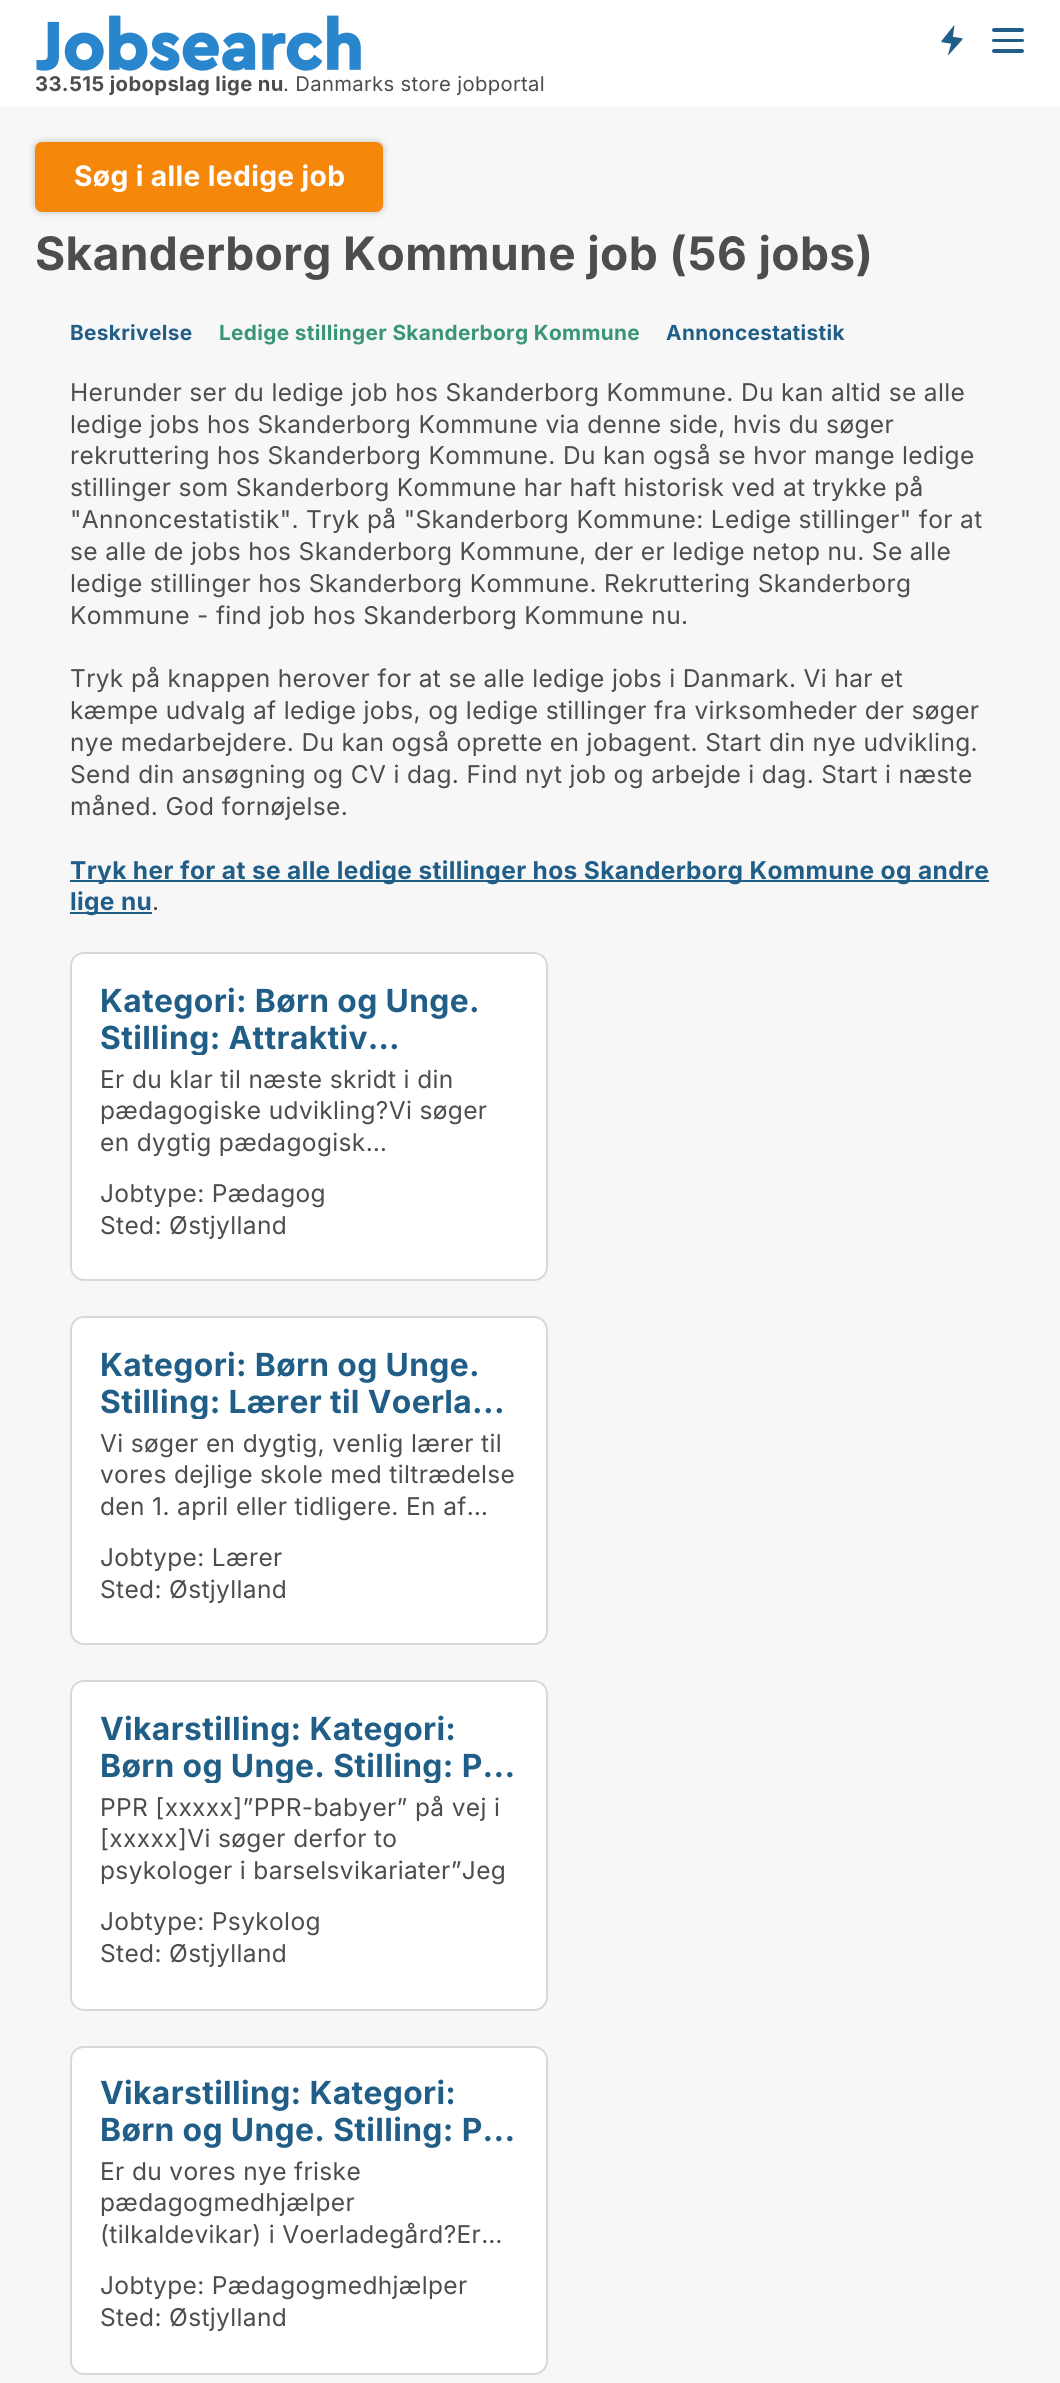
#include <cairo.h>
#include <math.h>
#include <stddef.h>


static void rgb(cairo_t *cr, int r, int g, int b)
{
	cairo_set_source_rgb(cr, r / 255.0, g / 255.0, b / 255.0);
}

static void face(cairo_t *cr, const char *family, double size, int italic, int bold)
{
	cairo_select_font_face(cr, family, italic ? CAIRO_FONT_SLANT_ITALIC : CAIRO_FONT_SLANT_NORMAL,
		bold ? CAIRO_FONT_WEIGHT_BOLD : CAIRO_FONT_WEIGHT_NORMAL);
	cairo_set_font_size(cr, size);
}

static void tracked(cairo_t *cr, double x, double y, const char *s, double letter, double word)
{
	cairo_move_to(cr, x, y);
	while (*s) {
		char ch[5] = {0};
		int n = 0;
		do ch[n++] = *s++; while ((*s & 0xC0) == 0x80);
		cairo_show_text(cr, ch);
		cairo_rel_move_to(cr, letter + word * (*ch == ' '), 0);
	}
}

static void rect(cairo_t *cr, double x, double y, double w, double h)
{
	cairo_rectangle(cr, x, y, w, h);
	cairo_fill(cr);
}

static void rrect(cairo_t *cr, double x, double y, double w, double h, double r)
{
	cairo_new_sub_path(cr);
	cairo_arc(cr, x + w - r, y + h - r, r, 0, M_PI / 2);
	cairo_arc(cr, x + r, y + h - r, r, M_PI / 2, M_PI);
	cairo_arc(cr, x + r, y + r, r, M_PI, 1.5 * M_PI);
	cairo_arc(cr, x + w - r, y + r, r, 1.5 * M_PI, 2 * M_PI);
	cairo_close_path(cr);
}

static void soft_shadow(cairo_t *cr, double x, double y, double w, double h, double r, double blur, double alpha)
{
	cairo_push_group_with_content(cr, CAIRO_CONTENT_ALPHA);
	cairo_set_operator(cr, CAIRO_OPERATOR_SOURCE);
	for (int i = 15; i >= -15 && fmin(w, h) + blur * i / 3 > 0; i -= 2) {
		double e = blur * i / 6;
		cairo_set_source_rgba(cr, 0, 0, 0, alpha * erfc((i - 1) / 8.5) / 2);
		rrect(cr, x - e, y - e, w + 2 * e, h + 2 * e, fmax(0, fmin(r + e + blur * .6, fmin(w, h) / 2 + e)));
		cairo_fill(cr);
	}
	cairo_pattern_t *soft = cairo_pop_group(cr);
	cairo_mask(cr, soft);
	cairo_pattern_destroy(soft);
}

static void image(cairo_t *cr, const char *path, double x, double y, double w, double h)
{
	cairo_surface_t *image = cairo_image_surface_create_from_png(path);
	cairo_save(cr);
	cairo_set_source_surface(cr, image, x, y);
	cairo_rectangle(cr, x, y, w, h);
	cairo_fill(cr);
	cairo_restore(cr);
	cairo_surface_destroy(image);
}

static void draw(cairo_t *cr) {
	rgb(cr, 255, 255, 255);
	cairo_paint(cr);
	image(cr, "image0.png", 36, 15, 325, 56);
	image(cr, "image1.png", 941, 25, 22, 30);
	rgb(cr, 33, 94, 135);
	rrect(cr, 992, 28, 32, 4, 2);
	cairo_fill(cr);
	rrect(cr, 992, 39, 32, 3, 1.5);
	cairo_fill(cr);
	rrect(cr, 992, 49, 32, 4, 2);
	cairo_fill(cr);
	face(cr, "Inter", 20.25, 0, 1);
	rgb(cr, 77, 77, 77);
	tracked(cr, 35, 91, "33.515 jobopslag lige nu", 0.35, 0);
	face(cr, "Inter", 20.25, 0, 0);
	tracked(cr, 283, 91, ". Danmarks store jobportal", 0.35, 0);
	rgb(cr, 247, 247, 247);
	rect(cr, 0, 107, 1060, 2276);
	rgb(cr, 0, 0, 0);
	soft_shadow(cr, 35, 142, 348, 70, 7, 3.5, 0.25);
	rgb(cr, 245, 135, 11);
	rrect(cr, 35, 142, 348, 70, 7);
	cairo_fill(cr);
	face(cr, "Inter", 28.25, 0, 1);
	rgb(cr, 255, 255, 255);
	tracked(cr, 74, 186, "Søg i alle ledige job", 0.35, 0);
	face(cr, "Inter", 46.1, 0, 1);
	rgb(cr, 77, 77, 77);
	tracked(cr, 35, 270, "Skanderborg Kommune job (56 jobs)", 0.35, 0);
	face(cr, "Inter", 20.8, 0, 1);
	rgb(cr, 33, 94, 135);
	tracked(cr, 70, 340, "Beskrivelse", 0.35, 0);
	rgb(cr, 57, 150, 116);
	tracked(cr, 219, 340, "Ledige stillinger Skanderborg Kommune", 0.35, 0);
	rgb(cr, 33, 94, 135);
	tracked(cr, 666, 340, "Annoncestatistik", 0.35, 0);
	face(cr, "Inter", 24.5, 0, 0);
	rgb(cr, 77, 77, 77);
	tracked(cr, 70, 401, "Herunder ser du ledige job hos Skanderborg Kommune. Du kan altid se alle", 0.35, 0);
	tracked(cr, 70, 433, "ledige jobs hos Skanderborg Kommune via denne side, hvis du søger", 0.35, 0);
	tracked(cr, 70, 464, "rekruttering hos Skanderborg Kommune. Du kan også se hvor mange ledige", 0.35, 0);
	tracked(cr, 70, 496, "stillinger som Skanderborg Kommune har haft historisk ved at trykke på", 0.35, 0);
	tracked(cr, 70, 528, "\"Annoncestatistik\". Tryk på \"Skanderborg Kommune: Ledige stillinger\" for at", 0.35, 0);
	tracked(cr, 70, 560, "se alle de jobs hos Skanderborg Kommune, der er ledige netop nu. Se alle", 0.35, 0);
	tracked(cr, 70, 592, "ledige stillinger hos Skanderborg Kommune. Rekruttering Skanderborg", 0.35, 0);
	tracked(cr, 70, 624, "Kommune - find job hos Skanderborg Kommune nu.", 0.35, 0);
	tracked(cr, 70, 687, "Tryk på knappen herover for at se alle ledige jobs i Danmark. Vi har et", 0.35, 0);
	tracked(cr, 70, 719, "kæmpe udvalg af ledige jobs, og ledige stillinger fra virksomheder der søger", 0.35, 0);
	tracked(cr, 70, 751, "nye medarbejdere. Du kan også oprette en jobagent. Start din nye udvikling.", 0.35, 0);
	tracked(cr, 70, 783, "Send din ansøgning og CV i dag. Find nyt job og arbejde i dag. Start i næste", 0.35, 0);
	tracked(cr, 70, 815, "måned. God fornøjelse.", 0.35, 0);
	rgb(cr, 33, 94, 135);
	rect(cr, 70, 880, 919, 2);
	face(cr, "Inter", 24.5, 0, 1);
	tracked(cr, 70, 879, "Tryk her for at se alle ledige stillinger hos Skanderborg Kommune og andre", 0.35, 0);
	rect(cr, 70, 912, 82, 2);
	tracked(cr, 70, 910, "lige nu", 0.35, 0);
	face(cr, "Inter", 24.5, 0, 0);
	rgb(cr, 77, 77, 77);
	tracked(cr, 152, 910, ".", 0.35, 0);
	rgb(cr, 255, 255, 255);
	rrect(cr, 71, 953, 476, 327, 13);
	cairo_fill_preserve(cr);
	rgb(cr, 216, 216, 216);
	cairo_stroke(cr);
	face(cr, "Inter", 31.8, 0, 1);
	rgb(cr, 33, 94, 135);
	tracked(cr, 100, 1012, "Kategori: Børn og Unge.", 0.35, 0);
	cairo_save(cr);
	cairo_rectangle(cr, 100, 982, 418, 73);
	cairo_clip(cr);
	tracked(cr, 100, 1049, "Stilling: Attraktiv…", 0.35, 0);
	cairo_restore(cr);
	face(cr, "Inter", 24.5, 0, 0);
	rgb(cr, 77, 77, 77);
	tracked(cr, 100, 1088, "Er du klar til næste skridt i din", 0.35, 0);
	tracked(cr, 100, 1119, "pædagogiske udvikling?Vi søger", 0.35, 0);
	tracked(cr, 100, 1151, "en dygtig pædagogisk…", 0.35, 0);
	tracked(cr, 100, 1202, "Jobtype: Pædagog", 0.35, 0);
	tracked(cr, 100, 1234, "Sted: Østjylland", 0.35, 0);
	rgb(cr, 255, 255, 255);
	rrect(cr, 71, 1317, 476, 327, 13);
	cairo_fill_preserve(cr);
	rgb(cr, 216, 216, 216);
	cairo_stroke(cr);
	face(cr, "Inter", 31.8, 0, 1);
	rgb(cr, 33, 94, 135);
	tracked(cr, 100, 1376, "Kategori: Børn og Unge.", 0.35, 0);
	cairo_save(cr);
	cairo_rectangle(cr, 100, 1346, 418, 73);
	cairo_clip(cr);
	tracked(cr, 100, 1413, "Stilling: Lærer til Voerla...", 0.35, 0);
	cairo_restore(cr);
	face(cr, "Inter", 24.5, 0, 0);
	rgb(cr, 77, 77, 77);
	tracked(cr, 100, 1452, "Vi søger en dygtig, venlig lærer til", 0.35, 0);
	tracked(cr, 100, 1483, "vores dejlige skole med tiltrædelse", 0.35, 0);
	tracked(cr, 100, 1515, "den 1. april eller tidligere. En af…", 0.35, 0);
	tracked(cr, 100, 1566, "Jobtype: Lærer", 0.35, 0);
	tracked(cr, 100, 1598, "Sted: Østjylland", 0.35, 0);
	rgb(cr, 255, 255, 255);
	rrect(cr, 71, 1681, 476, 329, 13);
	cairo_fill_preserve(cr);
	rgb(cr, 216, 216, 216);
	cairo_stroke(cr);
	face(cr, "Inter", 31.8, 0, 1);
	rgb(cr, 33, 94, 135);
	tracked(cr, 100, 1740, "Vikarstilling: Kategori:", 0.35, 0);
	cairo_save(cr);
	cairo_rectangle(cr, 100, 1710, 418, 73);
	cairo_clip(cr);
	tracked(cr, 100, 1777, "Børn og Unge. Stilling: P...", 0.35, 0);
	cairo_restore(cr);
	face(cr, "Inter", 24.5, 0, 0);
	rgb(cr, 77, 77, 77);
	tracked(cr, 100, 1816, "PPR [xxxxx]”PPR-babyer” på vej i", 0.35, 0);
	tracked(cr, 100, 1847, "[xxxxx]Vi søger derfor to", 0.35, 0);
	tracked(cr, 100, 1879, "psykologer i barselsvikariater”Jeg", 0.35, 0);
	tracked(cr, 100, 1930, "Jobtype: Psykolog", 0.35, 0);
	tracked(cr, 100, 1962, "Sted: Østjylland", 0.35, 0);
	rgb(cr, 255, 255, 255);
	rrect(cr, 71, 2047, 476, 327, 13);
	cairo_fill_preserve(cr);
	rgb(cr, 216, 216, 216);
	cairo_stroke(cr);
	face(cr, "Inter", 31.8, 0, 1);
	rgb(cr, 33, 94, 135);
	tracked(cr, 100, 2104, "Vikarstilling: Kategori:", 0.35, 0);
	tracked(cr, 100, 2141, "Børn og Unge. Stilling: P...", 0.35, 0);
	face(cr, "Inter", 24.5, 0, 0);
	rgb(cr, 77, 77, 77);
	tracked(cr, 100, 2180, "Er du vores nye friske", 0.35, 0);
	tracked(cr, 100, 2211, "pædagogmedhjælper", 0.35, 0);
	tracked(cr, 100, 2243, "(tilkaldevikar) i Voerladegård?Er…", 0.35, 0);
	tracked(cr, 100, 2294, "Jobtype: Pædagogmedhjælper", 0.35, 0);
	tracked(cr, 100, 2326, "Sted: Østjylland", 0.35, 0);
}

int main(void) {
	cairo_surface_t *surface = cairo_image_surface_create(CAIRO_FORMAT_RGB24, 1060, 2383);
	cairo_t *cr = cairo_create(surface);
	cairo_font_options_t *options = cairo_font_options_create();
	cairo_font_options_set_hint_metrics(options, CAIRO_HINT_METRICS_OFF);
	cairo_font_options_set_hint_style(options, CAIRO_HINT_STYLE_NONE);
	cairo_set_font_options(cr, options);
	cairo_set_miter_limit(cr, 4);
	draw(cr);
	cairo_surface_write_to_png(surface, "render.png");
	cairo_font_options_destroy(options);
	cairo_destroy(cr);
	cairo_surface_destroy(surface);
	return 0;
}
